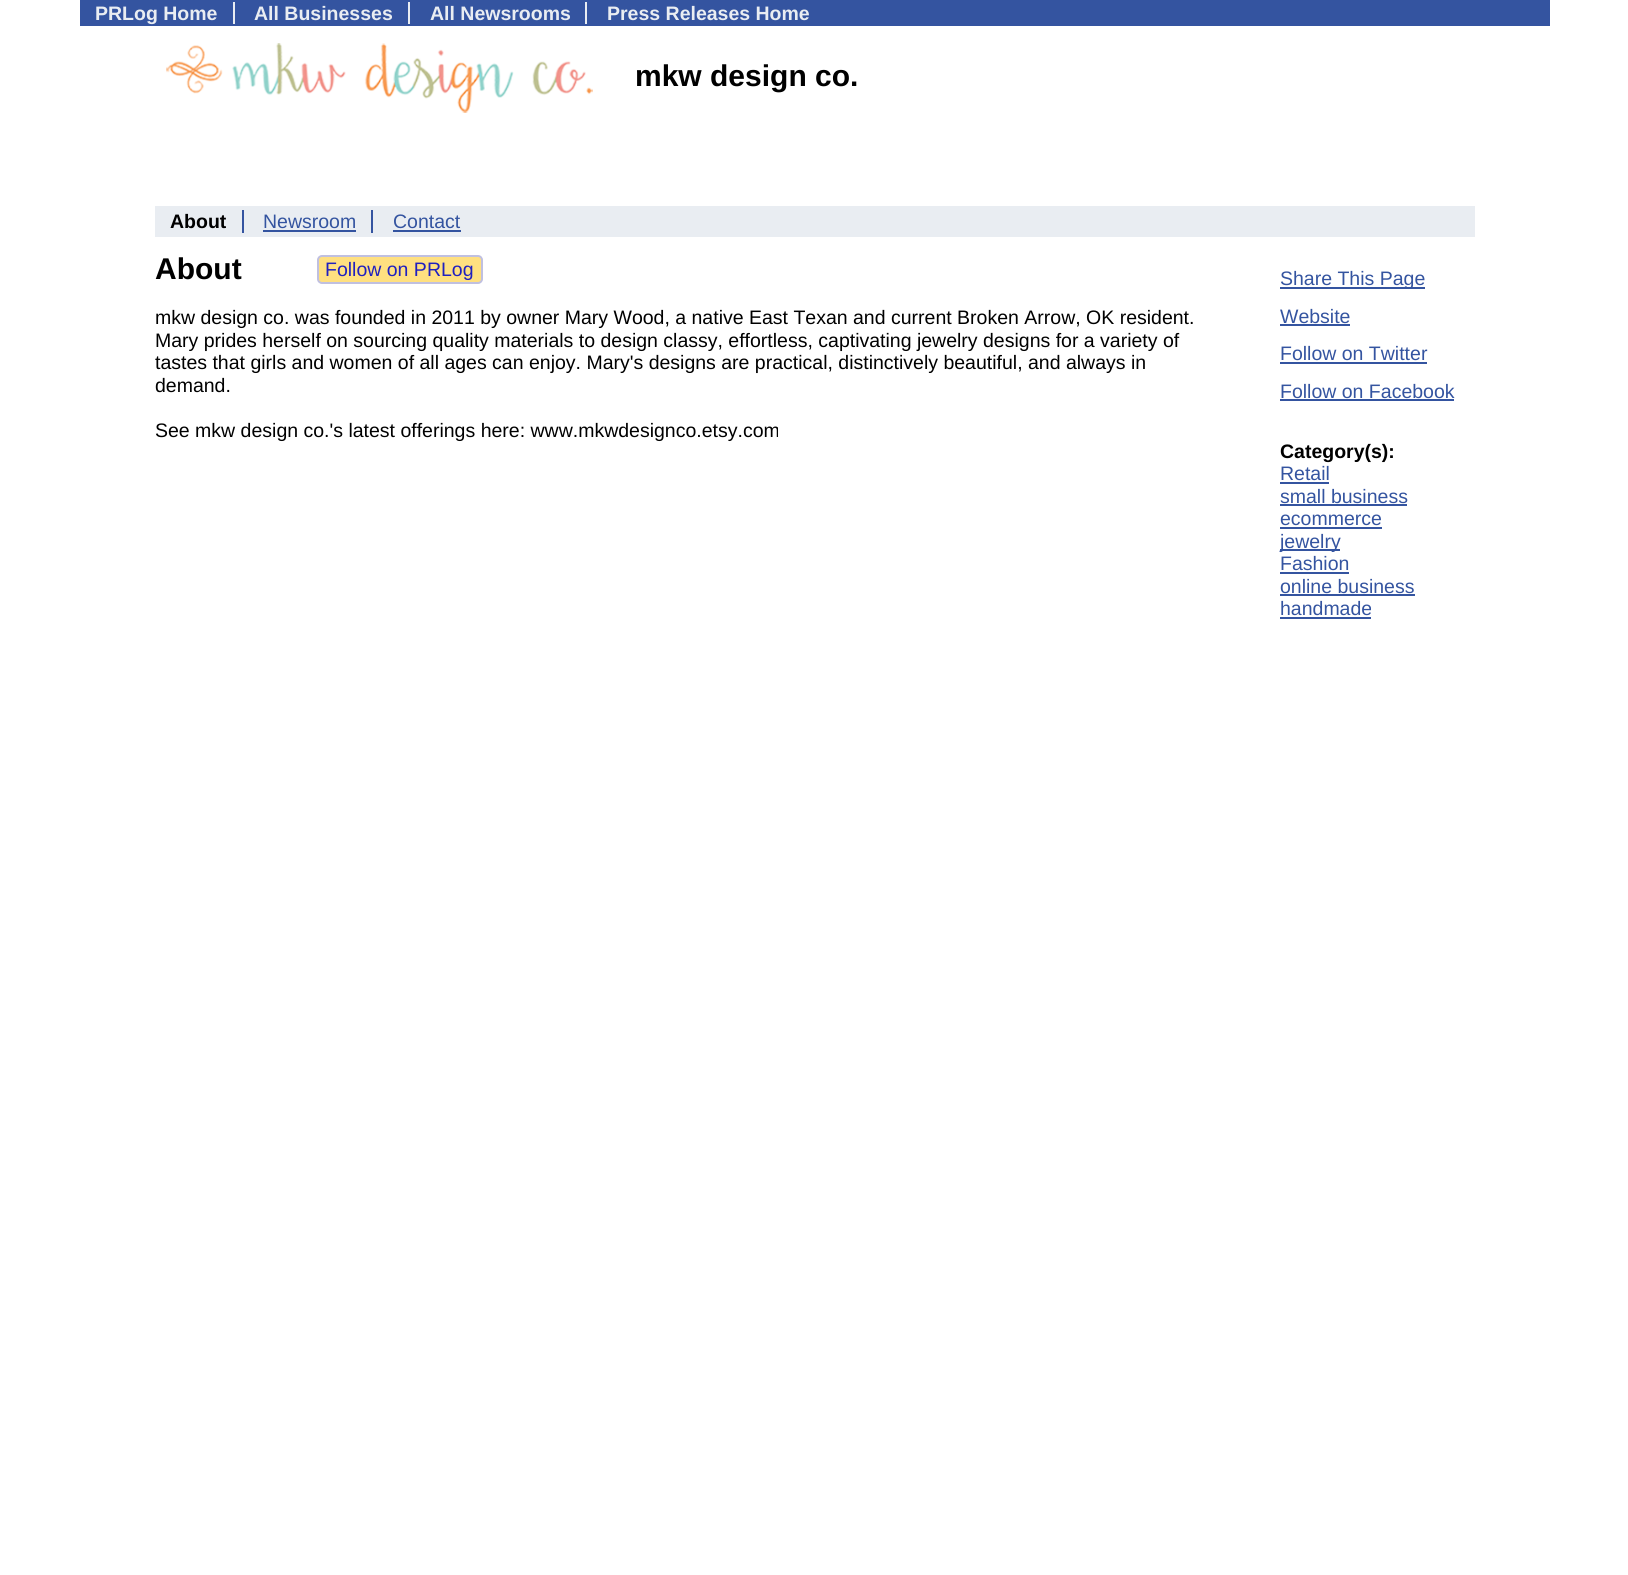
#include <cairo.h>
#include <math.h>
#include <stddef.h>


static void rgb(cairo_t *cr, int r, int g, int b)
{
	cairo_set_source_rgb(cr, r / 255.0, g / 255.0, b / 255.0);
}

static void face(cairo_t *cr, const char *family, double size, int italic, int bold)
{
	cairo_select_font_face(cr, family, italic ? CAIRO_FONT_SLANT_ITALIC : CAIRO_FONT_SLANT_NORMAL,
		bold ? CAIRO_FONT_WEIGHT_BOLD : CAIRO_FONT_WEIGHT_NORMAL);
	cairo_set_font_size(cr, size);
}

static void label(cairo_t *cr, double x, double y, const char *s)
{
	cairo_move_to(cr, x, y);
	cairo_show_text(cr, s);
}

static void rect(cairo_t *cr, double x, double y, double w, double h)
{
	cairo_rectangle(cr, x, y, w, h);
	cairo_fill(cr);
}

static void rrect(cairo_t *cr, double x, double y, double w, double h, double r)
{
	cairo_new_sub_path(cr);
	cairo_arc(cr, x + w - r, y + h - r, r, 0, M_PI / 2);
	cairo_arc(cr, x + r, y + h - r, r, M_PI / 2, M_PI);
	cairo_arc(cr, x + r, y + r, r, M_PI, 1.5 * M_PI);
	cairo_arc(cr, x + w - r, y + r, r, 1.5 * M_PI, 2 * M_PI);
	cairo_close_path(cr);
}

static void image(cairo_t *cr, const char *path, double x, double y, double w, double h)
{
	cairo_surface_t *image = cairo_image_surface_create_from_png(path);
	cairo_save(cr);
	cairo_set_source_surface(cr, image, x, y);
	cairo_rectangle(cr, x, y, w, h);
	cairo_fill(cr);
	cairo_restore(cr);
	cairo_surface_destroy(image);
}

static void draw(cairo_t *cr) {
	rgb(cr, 255, 255, 255);
	cairo_paint(cr);
	rgb(cr, 52, 84, 160);
	rect(cr, 80, 0, 1470, 26);
	rgb(cr, 233, 237, 242);
	rect(cr, 233, 2, 2, 22);
	face(cr, "Liberation Sans", 19.5, 0, 1);
	label(cr, 95, 20, "PRLog Home");
	rect(cr, 408, 2, 2, 22);
	label(cr, 254, 20, "All Businesses");
	rect(cr, 585, 2, 2, 22);
	label(cr, 430, 20, "All Newsrooms");
	label(cr, 607, 20, "Press Releases Home");
	image(cr, "image0.png", 166, 43, 427, 70);
	face(cr, "Liberation Sans", 30, 0, 1);
	rgb(cr, 0, 0, 0);
	label(cr, 635, 86, "mkw design co.");
	rgb(cr, 233, 237, 242);
	rect(cr, 155, 206, 1320, 31);
	rgb(cr, 52, 84, 160);
	rect(cr, 242, 210, 2, 23);
	face(cr, "Liberation Sans", 19.5, 0, 1);
	rgb(cr, 0, 0, 0);
	label(cr, 170, 228, "About");
	rgb(cr, 52, 84, 160);
	rect(cr, 371, 210, 2, 23);
	face(cr, "Liberation Sans", 19.5, 0, 0);
	label(cr, 263, 228, "Newsroom");
	rect(cr, 263, 230, 93, 2);
	label(cr, 393, 228, "Contact");
	rect(cr, 393, 230, 68, 2);
	face(cr, "Liberation Sans", 30, 0, 1);
	rgb(cr, 0, 0, 0);
	label(cr, 155, 279, "About");
	rgb(cr, 255, 224, 128);
	rrect(cr, 318, 256, 164, 27, 4);
	cairo_fill_preserve(cr);
	rgb(cr, 192, 192, 224);
	cairo_stroke(cr);
	face(cr, "Liberation Sans", 19.5, 0, 0);
	rgb(cr, 32, 32, 192);
	label(cr, 325, 276, "Follow on PRLog");
	rgb(cr, 0, 0, 0);
	label(cr, 155, 324, "mkw design co. was founded in 2011 by owner Mary Wood, a native East Texan and current Broken Arrow, OK resident.");
	label(cr, 155, 347, "Mary prides herself on sourcing quality materials to design classy, effortless, captivating jewelry designs for a variety of");
	label(cr, 155, 369, "tastes that girls and women of all ages can enjoy. Mary's designs are practical, distinctively beautiful, and always in");
	label(cr, 155, 392, "demand.");
	label(cr, 155, 437, "See mkw design co.'s latest offerings here: www.mkwdesignco.etsy.com");
	rgb(cr, 52, 84, 160);
	rect(cr, 1280, 287, 145, 2);
	label(cr, 1280, 285, "Share This Page");
	label(cr, 1280, 323, "Website");
	rect(cr, 1280, 324, 70, 2);
	label(cr, 1280, 360, "Follow on Twitter");
	rect(cr, 1280, 362, 147, 2);
	label(cr, 1280, 398, "Follow on Facebook");
	rect(cr, 1280, 399, 174, 2);
	face(cr, "Liberation Sans", 19.5, 0, 1);
	rgb(cr, 0, 0, 0);
	label(cr, 1280, 458, "Category(s):");
	face(cr, "Liberation Sans", 19.5, 0, 0);
	rgb(cr, 52, 84, 160);
	label(cr, 1280, 480, "Retail");
	rect(cr, 1280, 482, 49, 2);
	label(cr, 1280, 503, "small business");
	rect(cr, 1280, 504, 127, 2);
	label(cr, 1280, 525, "ecommerce");
	rect(cr, 1280, 527, 102, 2);
	rect(cr, 1280, 549, 60, 2);
	label(cr, 1280, 548, "jewelry");
	label(cr, 1280, 570, "Fashion");
	rect(cr, 1280, 572, 69, 2);
	label(cr, 1280, 593, "online business");
	rect(cr, 1280, 594, 135, 2);
	label(cr, 1280, 615, "handmade");
	rect(cr, 1280, 617, 91, 2);
}

int main(void) {
	cairo_surface_t *surface = cairo_image_surface_create(CAIRO_FORMAT_RGB24, 1628, 1575);
	cairo_t *cr = cairo_create(surface);
	cairo_font_options_t *options = cairo_font_options_create();
	cairo_font_options_set_hint_metrics(options, CAIRO_HINT_METRICS_OFF);
	cairo_font_options_set_hint_style(options, CAIRO_HINT_STYLE_NONE);
	cairo_set_font_options(cr, options);
	cairo_set_miter_limit(cr, 4);
	draw(cr);
	cairo_surface_write_to_png(surface, "render.png");
	cairo_font_options_destroy(options);
	cairo_destroy(cr);
	cairo_surface_destroy(surface);
	return 0;
}
